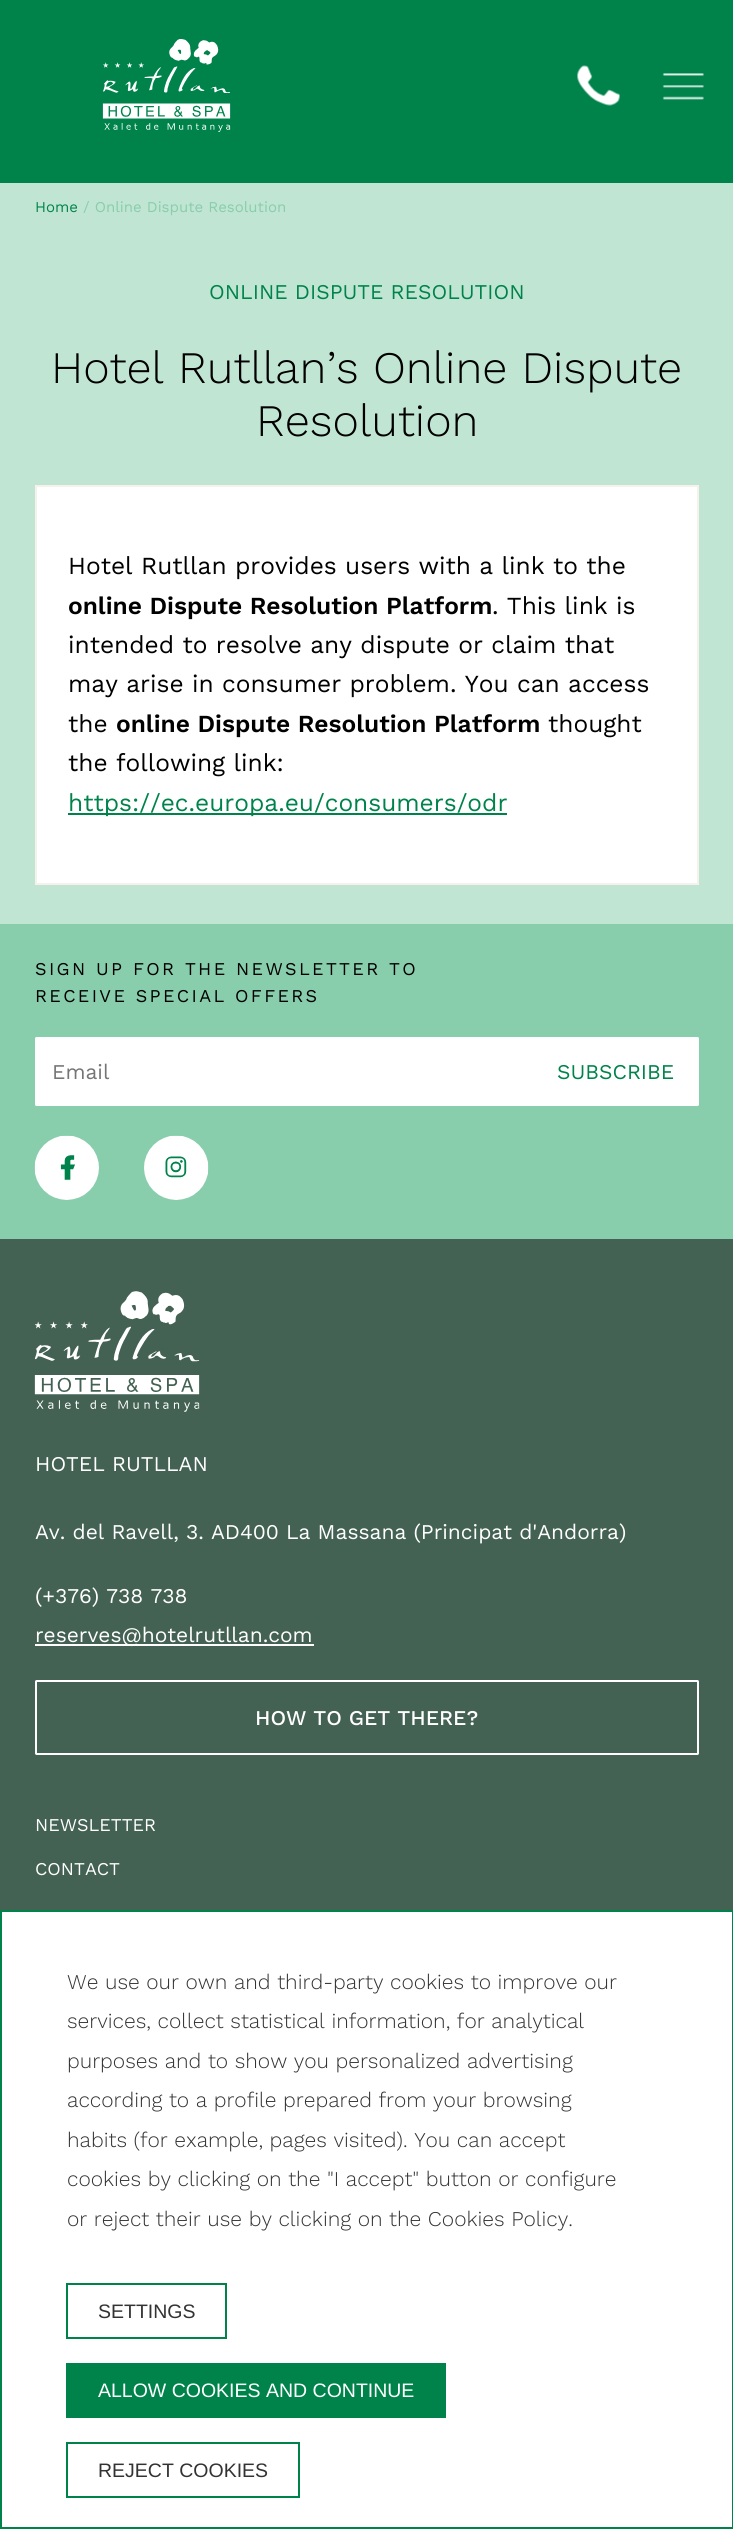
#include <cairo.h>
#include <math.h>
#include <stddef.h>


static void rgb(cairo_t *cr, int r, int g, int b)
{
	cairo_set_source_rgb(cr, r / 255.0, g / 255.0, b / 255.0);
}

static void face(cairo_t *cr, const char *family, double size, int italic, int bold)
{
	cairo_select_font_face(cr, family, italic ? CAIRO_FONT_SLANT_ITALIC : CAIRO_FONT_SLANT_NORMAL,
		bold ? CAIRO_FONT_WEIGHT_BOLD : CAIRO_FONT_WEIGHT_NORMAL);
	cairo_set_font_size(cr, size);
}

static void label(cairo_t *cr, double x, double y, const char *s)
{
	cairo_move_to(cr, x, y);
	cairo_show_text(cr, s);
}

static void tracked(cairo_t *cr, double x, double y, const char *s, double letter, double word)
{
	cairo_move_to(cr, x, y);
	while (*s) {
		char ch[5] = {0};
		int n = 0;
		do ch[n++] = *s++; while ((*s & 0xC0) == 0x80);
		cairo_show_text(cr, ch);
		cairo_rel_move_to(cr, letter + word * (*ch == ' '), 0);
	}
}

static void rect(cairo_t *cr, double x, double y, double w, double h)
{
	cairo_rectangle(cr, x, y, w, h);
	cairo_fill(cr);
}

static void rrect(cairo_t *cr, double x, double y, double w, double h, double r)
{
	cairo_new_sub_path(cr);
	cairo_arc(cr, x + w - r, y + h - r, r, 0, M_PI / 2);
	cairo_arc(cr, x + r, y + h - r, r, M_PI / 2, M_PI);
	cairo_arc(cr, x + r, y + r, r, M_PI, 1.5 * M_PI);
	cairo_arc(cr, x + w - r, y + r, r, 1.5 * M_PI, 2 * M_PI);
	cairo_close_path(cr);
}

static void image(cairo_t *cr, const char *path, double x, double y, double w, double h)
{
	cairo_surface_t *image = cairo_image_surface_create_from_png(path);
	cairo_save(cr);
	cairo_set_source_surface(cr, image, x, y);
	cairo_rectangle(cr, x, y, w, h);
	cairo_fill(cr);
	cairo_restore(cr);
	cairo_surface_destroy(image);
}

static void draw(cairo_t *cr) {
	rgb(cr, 193, 229, 211);
	cairo_paint(cr);
	rgb(cr, 0, 131, 75);
	rect(cr, 0, 0, 733, 183);
	image(cr, "image0.png", 102, 39, 129, 93);
	image(cr, "image1.png", 577, 65, 43, 41);
	image(cr, "image2.png", 662, 73, 42, 27);
	face(cr, "Work Sans", 15, 0, 0);
	label(cr, 35, 212, "Home");
	rgb(cr, 136, 205, 172);
	label(cr, 83, 212, "/ Online Dispute Resolution");
	face(cr, "Work Sans", 21, 0, 0);
	rgb(cr, 0, 131, 75);
	label(cr, 209, 299, "ONLINE DISPUTE RESOLUTION");
	face(cr, "Work Sans Light", 45, 0, 0);
	rgb(cr, 0, 0, 0);
	label(cr, 51, 383, "Hotel Rutllan’s Online Dispute");
	label(cr, 256, 436, "Resolution");
	rgb(cr, 255, 255, 255);
	cairo_rectangle(cr, 36, 486, 662, 398);
	cairo_fill_preserve(cr);
	rgb(cr, 246, 241, 234);
	cairo_stroke(cr);
	face(cr, "Work Sans", 24.5, 0, 0);
	rgb(cr, 0, 0, 0);
	label(cr, 68, 574, "Hotel Rutllan provides users with a link to the");
	face(cr, "Work Sans SemiBold", 24.5, 0, 0);
	label(cr, 68, 614, "online Dispute Resolution Platform");
	face(cr, "Work Sans", 24.5, 0, 0);
	label(cr, 492, 614, ". This link is");
	label(cr, 68, 653, "intended to resolve any dispute or claim that");
	label(cr, 68, 692, "may arise in consumer problem. You can access");
	label(cr, 68, 732, "the");
	face(cr, "Work Sans SemiBold", 24.5, 0, 0);
	label(cr, 116, 732, "online Dispute Resolution Platform");
	face(cr, "Work Sans", 24.5, 0, 0);
	label(cr, 548, 732, "thought");
	label(cr, 68, 771, "the following link:");
	rgb(cr, 0, 131, 75);
	rect(cr, 68, 813, 439, 2);
	label(cr, 68, 811, "https://ec.europa.eu/consumers/odr");
	rgb(cr, 136, 205, 172);
	rect(cr, 0, 924, 733, 315);
	face(cr, "Work Sans", 18, 0, 0);
	rgb(cr, 0, 0, 0);
	tracked(cr, 35, 975, "SIGN UP FOR THE NEWSLETTER TO", 2.35, 0);
	tracked(cr, 35, 1002, "RECEIVE SPECIAL OFFERS", 2.35, 0);
	rgb(cr, 255, 255, 255);
	rrect(cr, 35, 1037, 664, 69, 1.5);
	cairo_fill(cr);
	face(cr, "Work Sans", 21, 0, 0);
	rgb(cr, 117, 117, 117);
	label(cr, 52, 1079, "Email");
	rgb(cr, 0, 131, 75);
	label(cr, 557, 1079, "SUBSCRIBE");
	image(cr, "image3.png", 34, 1135, 65, 65);
	image(cr, "image4.png", 144, 1135, 65, 65);
	rgb(cr, 67, 98, 83);
	rect(cr, 0, 1239, 733, 671);
	image(cr, "image5.png", 34, 1291, 166, 121);
	rgb(cr, 255, 255, 255);
	label(cr, 35, 1471, "HOTEL RUTLLAN");
	label(cr, 35, 1539, "Av. del Ravell, 3. AD400 La Massana (Principat d'Andorra)");
	label(cr, 35, 1603, "(+376) 738 738");
	rect(cr, 35, 1644, 279, 2);
	label(cr, 35, 1642, "reserves@hotelrutllan.com");
	rrect(cr, 36, 1681, 662, 73, 0.5);
	cairo_stroke(cr);
	face(cr, "Work Sans Medium", 21, 0, 0);
	label(cr, 255, 1725, "HOW TO GET THERE?");
	face(cr, "Work Sans", 18, 0, 0);
	label(cr, 35, 1831, "NEWSLETTER");
	label(cr, 35, 1875, "CONTACT");
	cairo_rectangle(cr, 1, 1911, 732, 617);
	cairo_fill_preserve(cr);
	rgb(cr, 0, 131, 75);
	cairo_stroke(cr);
	face(cr, "Work Sans Light", 21, 0, 0);
	rgb(cr, 51, 51, 51);
	label(cr, 67, 1989, "We use our own and third-party cookies to improve our");
	label(cr, 67, 2028, "services, collect statistical information, for analytical");
	label(cr, 67, 2068, "purposes and to show you personalized advertising");
	label(cr, 67, 2107, "according to a profile prepared from your browsing");
	label(cr, 67, 2147, "habits (for example, pages visited). You can accept");
	label(cr, 67, 2186, "cookies by clicking on the \"I accept\" button or configure");
	label(cr, 67, 2226, "or reject their use by clicking on the Cookies Policy.");
	cairo_rectangle(cr, 67, 2284, 159, 54);
	rgb(cr, 0, 131, 75);
	cairo_stroke(cr);
	face(cr, "Liberation Sans", 19.5, 0, 0);
	rgb(cr, 51, 51, 51);
	label(cr, 98, 2318, "SETTINGS");
	rgb(cr, 0, 131, 75);
	rect(cr, 66, 2363, 380, 55);
	rgb(cr, 255, 255, 255);
	label(cr, 98, 2397, "ALLOW COOKIES AND CONTINUE");
	cairo_rectangle(cr, 67, 2443, 232, 54);
	rgb(cr, 0, 131, 75);
	cairo_stroke(cr);
	rgb(cr, 51, 51, 51);
	label(cr, 98, 2477, "REJECT COOKIES");
}

int main(void) {
	cairo_surface_t *surface = cairo_image_surface_create(CAIRO_FORMAT_RGB24, 733, 2529);
	cairo_t *cr = cairo_create(surface);
	cairo_font_options_t *options = cairo_font_options_create();
	cairo_font_options_set_hint_metrics(options, CAIRO_HINT_METRICS_OFF);
	cairo_font_options_set_hint_style(options, CAIRO_HINT_STYLE_NONE);
	cairo_set_font_options(cr, options);
	cairo_set_miter_limit(cr, 4);
	draw(cr);
	cairo_surface_write_to_png(surface, "render.png");
	cairo_font_options_destroy(options);
	cairo_destroy(cr);
	cairo_surface_destroy(surface);
	return 0;
}
